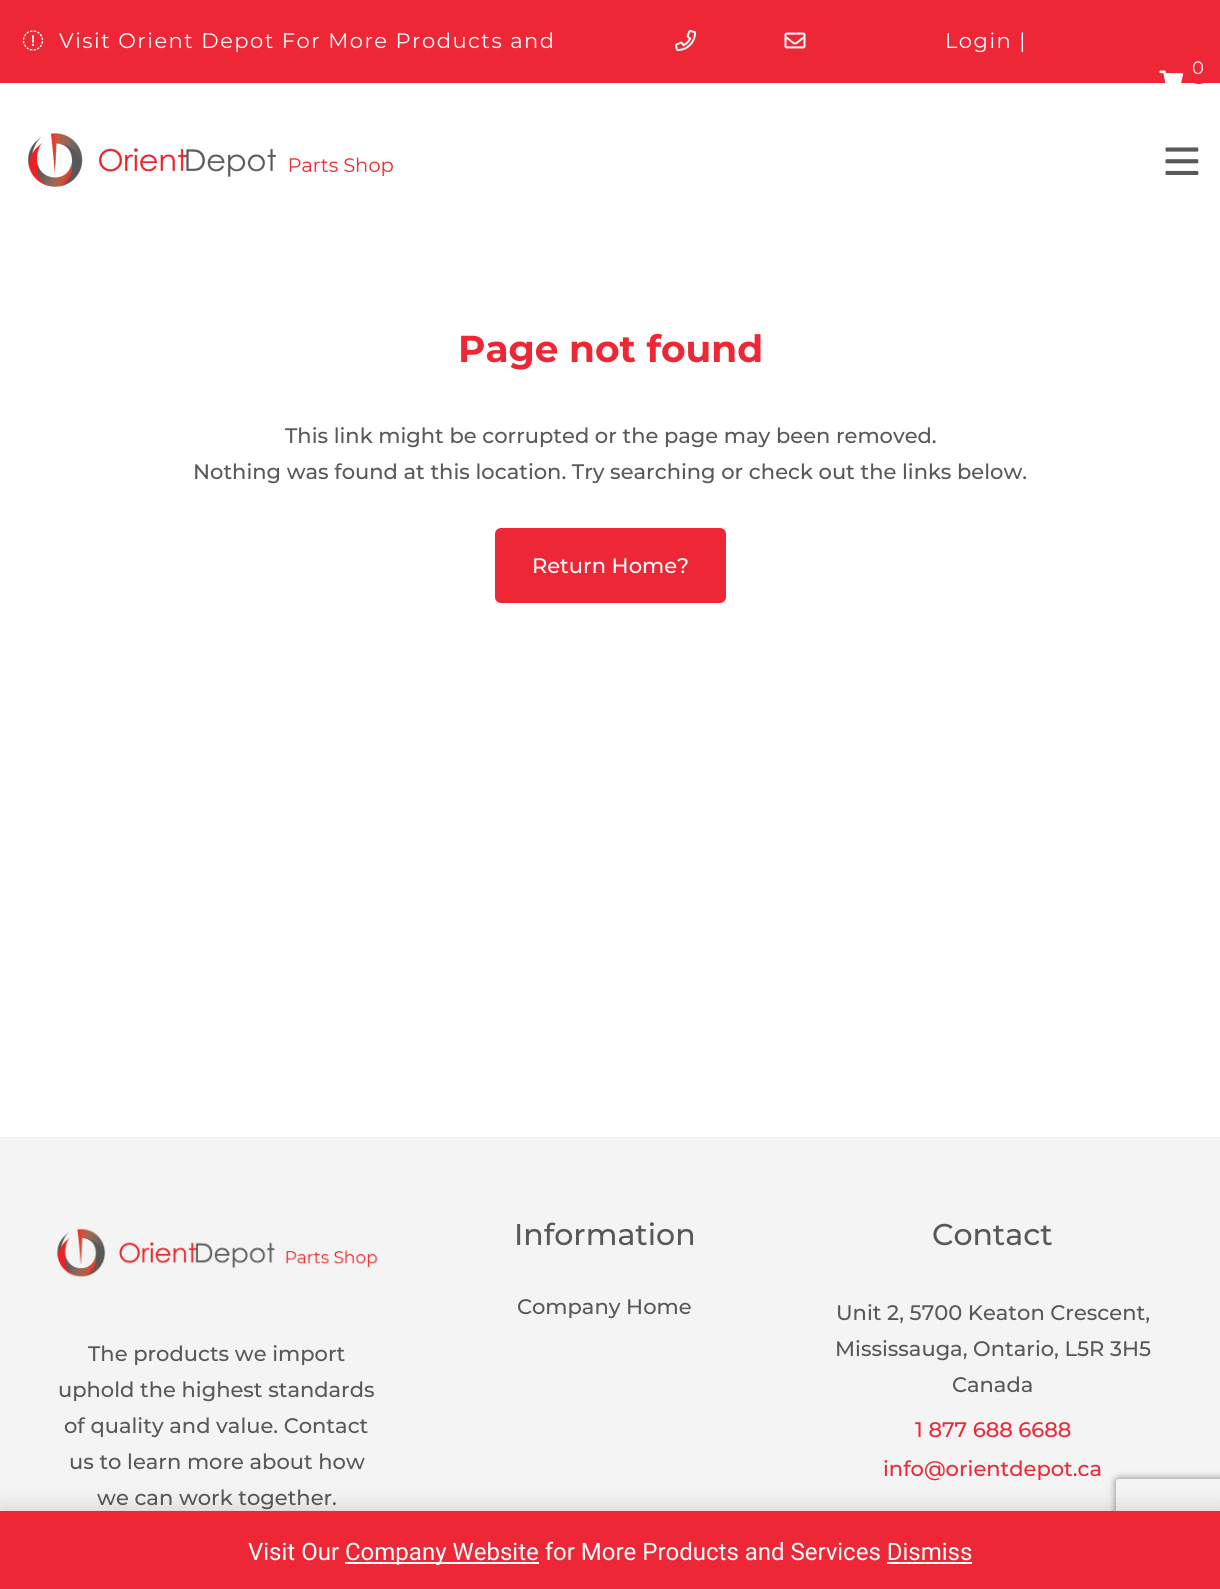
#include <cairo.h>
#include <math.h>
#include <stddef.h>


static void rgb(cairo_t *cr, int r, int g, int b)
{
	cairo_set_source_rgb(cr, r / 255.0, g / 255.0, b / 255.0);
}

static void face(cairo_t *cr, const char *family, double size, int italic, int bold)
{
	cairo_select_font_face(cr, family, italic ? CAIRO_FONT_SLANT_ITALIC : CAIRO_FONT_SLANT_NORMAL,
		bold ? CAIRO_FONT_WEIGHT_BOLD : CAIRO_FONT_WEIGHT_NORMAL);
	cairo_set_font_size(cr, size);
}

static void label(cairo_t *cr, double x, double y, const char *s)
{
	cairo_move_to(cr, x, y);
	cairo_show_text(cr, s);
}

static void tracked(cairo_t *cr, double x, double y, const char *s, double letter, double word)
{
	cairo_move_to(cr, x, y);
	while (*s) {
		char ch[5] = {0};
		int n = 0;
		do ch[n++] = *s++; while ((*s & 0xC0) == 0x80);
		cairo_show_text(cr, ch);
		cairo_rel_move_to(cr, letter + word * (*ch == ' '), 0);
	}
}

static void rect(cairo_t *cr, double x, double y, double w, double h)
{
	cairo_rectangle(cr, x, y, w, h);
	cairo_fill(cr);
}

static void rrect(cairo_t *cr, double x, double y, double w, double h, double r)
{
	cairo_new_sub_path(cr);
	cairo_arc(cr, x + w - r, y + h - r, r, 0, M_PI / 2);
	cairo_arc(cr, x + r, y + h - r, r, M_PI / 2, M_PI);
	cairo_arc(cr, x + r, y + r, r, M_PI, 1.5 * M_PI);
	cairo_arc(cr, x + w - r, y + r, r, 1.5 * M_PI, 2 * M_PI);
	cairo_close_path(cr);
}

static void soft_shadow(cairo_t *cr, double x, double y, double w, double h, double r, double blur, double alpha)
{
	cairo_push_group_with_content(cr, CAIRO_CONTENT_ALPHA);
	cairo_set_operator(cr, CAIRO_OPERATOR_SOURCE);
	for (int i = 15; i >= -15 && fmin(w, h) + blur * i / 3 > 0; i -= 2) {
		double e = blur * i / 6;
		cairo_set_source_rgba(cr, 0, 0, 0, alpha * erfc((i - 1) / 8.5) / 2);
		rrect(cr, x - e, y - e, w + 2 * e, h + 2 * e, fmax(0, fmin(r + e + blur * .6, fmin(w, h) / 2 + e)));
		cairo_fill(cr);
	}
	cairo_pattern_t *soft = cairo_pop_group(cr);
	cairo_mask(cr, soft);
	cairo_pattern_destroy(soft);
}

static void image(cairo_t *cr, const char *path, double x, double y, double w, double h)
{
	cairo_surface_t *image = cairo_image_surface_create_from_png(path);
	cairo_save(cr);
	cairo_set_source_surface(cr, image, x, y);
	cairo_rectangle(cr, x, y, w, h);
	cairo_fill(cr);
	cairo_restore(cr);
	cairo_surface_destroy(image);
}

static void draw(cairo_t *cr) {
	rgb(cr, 255, 255, 255);
	cairo_paint(cr);
	rgb(cr, 238, 39, 55);
	rect(cr, 0, 0, 1220, 83);
	image(cr, "image0.png", 22, 30, 22, 21);
	face(cr, "Montserrat", 21, 0, 0);
	rgb(cr, 255, 255, 255);
	tracked(cr, 59, 48, "Visit Orient Depot For More Products and", 1.5, 0);
	image(cr, "image1.png", 675, 30, 21, 21);
	image(cr, "image2.png", 784, 32, 22, 17);
	tracked(cr, 945, 48, "Login |", 1.5, 0);
	rgb(cr, 238, 39, 55);
	cairo_new_path(cr);
	cairo_arc(cr, 1199, 69, 15, 0, 2 * M_PI);
	cairo_fill(cr);
	face(cr, "Montserrat", 18, 0, 0);
	rgb(cr, 255, 255, 255);
	tracked(cr, 1192, 74, "0", 1.5, 0);
	image(cr, "image3.png", 1159, 70, 25, 13);
	image(cr, "image4.png", 28, 133, 365, 54);
	image(cr, "image5.png", 1165, 147, 34, 28);
	face(cr, "Montserrat", 37.5, 0, 1);
	rgb(cr, 238, 39, 55);
	label(cr, 458, 362, "Page not found");
	face(cr, "Montserrat Medium", 21, 0, 0);
	rgb(cr, 88, 88, 89);
	label(cr, 285, 443, "This link might be corrupted or the page may been removed.");
	label(cr, 193, 479, "Nothing was found at this location. Try searching or check out the links below.");
	rgb(cr, 238, 39, 55);
	rrect(cr, 495, 528, 231, 75, 6);
	cairo_fill(cr);
	rgb(cr, 255, 255, 255);
	label(cr, 532, 573, "Return Home?");
	rgb(cr, 244, 244, 244);
	rect(cr, 0, 1137, 1220, 374);
	image(cr, "image6.png", 57, 1228, 321, 50);
	rgb(cr, 88, 88, 89);
	label(cr, 88, 1361, "The products we import");
	label(cr, 58, 1397, "uphold the highest standards");
	label(cr, 64, 1433, "of quality and value. Contact");
	label(cr, 69, 1469, "us to learn more about how");
	label(cr, 97, 1505, "we can work together.");
	face(cr, "Montserrat Medium", 30, 0, 0);
	label(cr, 514, 1245, "Information");
	face(cr, "Montserrat Medium", 21, 0, 0);
	label(cr, 517, 1314, "Company Home");
	face(cr, "Montserrat Medium", 30, 0, 0);
	label(cr, 932, 1245, "Contact");
	face(cr, "Montserrat Medium", 21, 0, 0);
	label(cr, 836, 1320, "Unit 2, 5700 Keaton Crescent,");
	label(cr, 835, 1356, "Mississauga, Ontario, L5R 3H5");
	label(cr, 952, 1392, "Canada");
	rgb(cr, 238, 39, 55);
	label(cr, 915, 1437, "1 877 688 6688");
	label(cr, 883, 1476, "info@orientdepot.ca");
	rgb(cr, 0, 0, 0);
	soft_shadow(cr, 0, 1512, 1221, 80, 0, 12, 0.2);
	cairo_save(cr);
	cairo_set_fill_rule(cr, CAIRO_FILL_RULE_EVEN_ODD);
	cairo_new_path(cr);
	cairo_move_to(cr, 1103, 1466);
	cairo_line_to(cr, 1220, 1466);
	cairo_line_to(cr, 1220, 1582);
	cairo_line_to(cr, 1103, 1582);
	cairo_close_path(cr);
	cairo_move_to(cr, 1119, 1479);
	cairo_line_to(cr, 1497, 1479);
	cairo_curve_to(cr, 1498.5, 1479, 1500, 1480.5, 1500, 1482);
	cairo_line_to(cr, 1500, 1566);
	cairo_curve_to(cr, 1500, 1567.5, 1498.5, 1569, 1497, 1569);
	cairo_line_to(cr, 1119, 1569);
	cairo_curve_to(cr, 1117.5, 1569, 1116, 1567.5, 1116, 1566);
	cairo_line_to(cr, 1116, 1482);
	cairo_curve_to(cr, 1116, 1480.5, 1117.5, 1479, 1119, 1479);
	cairo_close_path(cr);
	cairo_clip(cr);
	rgb(cr, 128, 128, 128);
	soft_shadow(cr, 1116, 1479, 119, 90, 3, 4, 1);
	cairo_restore(cr);
	rgb(cr, 238, 39, 55);
	rect(cr, 0, 1511, 1220, 78);
	face(cr, "Roboto", 24, 0, 0);
	rgb(cr, 255, 255, 255);
	label(cr, 248, 1560, "Visit Our");
	rgb(cr, 252, 251, 254);
	rect(cr, 345, 1562, 194, 2);
	rgb(cr, 255, 255, 255);
	label(cr, 345, 1560, "Company Website for More Products and Services Dismiss");
	rgb(cr, 252, 251, 254);
	rect(cr, 887, 1562, 85, 2);
}

int main(void) {
	cairo_surface_t *surface = cairo_image_surface_create(CAIRO_FORMAT_RGB24, 1220, 1589);
	cairo_t *cr = cairo_create(surface);
	cairo_font_options_t *options = cairo_font_options_create();
	cairo_font_options_set_hint_metrics(options, CAIRO_HINT_METRICS_OFF);
	cairo_font_options_set_hint_style(options, CAIRO_HINT_STYLE_NONE);
	cairo_set_font_options(cr, options);
	cairo_set_miter_limit(cr, 4);
	draw(cr);
	cairo_surface_write_to_png(surface, "render.png");
	cairo_font_options_destroy(options);
	cairo_destroy(cr);
	cairo_surface_destroy(surface);
	return 0;
}
